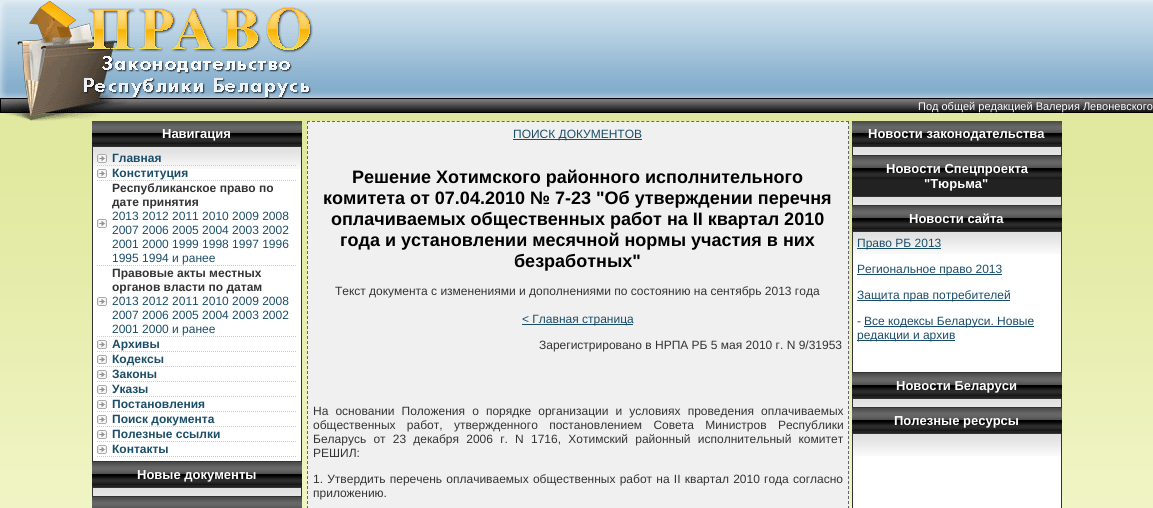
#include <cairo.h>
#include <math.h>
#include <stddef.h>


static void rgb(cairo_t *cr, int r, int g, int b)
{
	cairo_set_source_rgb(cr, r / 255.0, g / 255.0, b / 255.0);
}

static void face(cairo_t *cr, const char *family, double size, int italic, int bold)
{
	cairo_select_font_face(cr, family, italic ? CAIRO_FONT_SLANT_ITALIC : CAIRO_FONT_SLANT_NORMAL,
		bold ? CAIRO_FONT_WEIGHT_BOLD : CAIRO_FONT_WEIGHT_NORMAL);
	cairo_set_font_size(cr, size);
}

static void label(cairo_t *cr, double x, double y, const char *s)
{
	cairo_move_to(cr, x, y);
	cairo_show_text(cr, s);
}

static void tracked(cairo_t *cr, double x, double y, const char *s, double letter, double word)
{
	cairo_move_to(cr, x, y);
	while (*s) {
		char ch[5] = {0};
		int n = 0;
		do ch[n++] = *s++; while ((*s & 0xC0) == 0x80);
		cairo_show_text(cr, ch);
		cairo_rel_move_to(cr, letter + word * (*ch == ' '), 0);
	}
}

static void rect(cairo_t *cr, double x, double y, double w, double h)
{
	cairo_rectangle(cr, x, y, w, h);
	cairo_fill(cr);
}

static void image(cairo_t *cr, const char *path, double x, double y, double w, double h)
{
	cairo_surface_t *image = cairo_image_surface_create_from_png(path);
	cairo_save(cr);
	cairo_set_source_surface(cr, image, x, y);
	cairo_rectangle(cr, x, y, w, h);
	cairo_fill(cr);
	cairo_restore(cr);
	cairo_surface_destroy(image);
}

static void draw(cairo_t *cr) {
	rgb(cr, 255, 255, 255);
	cairo_paint(cr);
	image(cr, "image0.png", 0, 113, 1153, 395);
	image(cr, "image1.png", 0, 0, 1153, 113);
	image(cr, "image2.png", 0, 1, 313, 120);
	face(cr, "Liberation Sans", 11, 0, 0);
	rgb(cr, 255, 255, 255);
	label(cr, 918, 110, "Под общей редакцией Валерия Левоневского");
	rgb(cr, 34, 34, 34);
	rect(cr, 92, 144, 210, 2);
	image(cr, "image3.png", 92, 121, 210, 23);
	face(cr, "Liberation Sans", 13, 0, 1);
	rgb(cr, 255, 255, 255);
	label(cr, 162, 138, "Навигация");
	rect(cr, 93, 169, 208, 292);
	image(cr, "image4.png", 93, 147, 208, 22);
	cairo_rectangle(cr, 92.5, 146.5, 209, 315);
	rgb(cr, 51, 51, 51);
	cairo_set_line_width(cr, 1);
	cairo_stroke(cr);
	image(cr, "image5.png", 97, 154, 10, 9);
	cairo_new_path(cr);
	cairo_move_to(cr, 97, 165.5);
	cairo_line_to(cr, 297, 165.5);
	rgb(cr, 204, 204, 204);
	cairo_set_dash(cr, (double[]){1, 1}, 2, 0);
	cairo_stroke(cr);
	face(cr, "Liberation Sans", 12, 0, 1);
	rgb(cr, 26, 77, 104);
	label(cr, 112, 162, "Главная");
	image(cr, "image6.png", 97, 169, 10, 9);
	cairo_new_path(cr);
	cairo_move_to(cr, 97, 180.5);
	cairo_line_to(cr, 297, 180.5);
	rgb(cr, 204, 204, 204);
	cairo_stroke(cr);
	rgb(cr, 26, 77, 104);
	label(cr, 112, 177, "Конституция");
	image(cr, "image6.png", 97, 219, 10, 9);
	cairo_new_path(cr);
	cairo_move_to(cr, 97, 265.5);
	cairo_line_to(cr, 297, 265.5);
	rgb(cr, 204, 204, 204);
	cairo_stroke(cr);
	rgb(cr, 51, 51, 51);
	label(cr, 112, 192, "Республиканское право по");
	label(cr, 112, 206, "дате принятия");
	face(cr, "Liberation Sans", 12, 0, 0);
	rgb(cr, 26, 77, 104);
	label(cr, 112, 220, "2013 2012 2011 2010 2009 2008");
	label(cr, 112, 234, "2007 2006 2005 2004 2003 2002");
	label(cr, 112, 248, "2001 2000 1999 1998 1997 1996");
	label(cr, 112, 262, "1995 1994 и ранее");
	image(cr, "image6.png", 97, 297, 10, 9);
	cairo_new_path(cr);
	cairo_move_to(cr, 97, 336.5);
	cairo_line_to(cr, 297, 336.5);
	rgb(cr, 204, 204, 204);
	cairo_stroke(cr);
	face(cr, "Liberation Sans", 12, 0, 1);
	rgb(cr, 51, 51, 51);
	label(cr, 112, 277, "Правовые акты местных");
	label(cr, 112, 291, "органов власти по датам");
	face(cr, "Liberation Sans", 12, 0, 0);
	rgb(cr, 26, 77, 104);
	label(cr, 112, 305, "2013 2012 2011 2010 2009 2008");
	label(cr, 112, 319, "2007 2006 2005 2004 2003 2002");
	label(cr, 112, 333, "2001 2000 и ранее");
	image(cr, "image6.png", 97, 340, 10, 9);
	cairo_new_path(cr);
	cairo_move_to(cr, 97, 351.5);
	cairo_line_to(cr, 297, 351.5);
	rgb(cr, 204, 204, 204);
	cairo_stroke(cr);
	face(cr, "Liberation Sans", 12, 0, 1);
	rgb(cr, 26, 77, 104);
	label(cr, 112, 348, "Архивы");
	image(cr, "image6.png", 97, 355, 10, 9);
	cairo_new_path(cr);
	cairo_move_to(cr, 97, 366.5);
	cairo_line_to(cr, 297, 366.5);
	rgb(cr, 204, 204, 204);
	cairo_stroke(cr);
	rgb(cr, 26, 77, 104);
	label(cr, 112, 363, "Кодексы");
	image(cr, "image6.png", 97, 370, 10, 9);
	cairo_new_path(cr);
	cairo_move_to(cr, 97, 381.5);
	cairo_line_to(cr, 297, 381.5);
	rgb(cr, 204, 204, 204);
	cairo_stroke(cr);
	rgb(cr, 26, 77, 104);
	label(cr, 112, 378, "Законы");
	image(cr, "image6.png", 97, 385, 10, 9);
	cairo_new_path(cr);
	cairo_move_to(cr, 97, 396.5);
	cairo_line_to(cr, 297, 396.5);
	rgb(cr, 204, 204, 204);
	cairo_stroke(cr);
	rgb(cr, 26, 77, 104);
	label(cr, 112, 393, "Указы");
	image(cr, "image6.png", 97, 400, 10, 9);
	cairo_new_path(cr);
	cairo_move_to(cr, 97, 411.5);
	cairo_line_to(cr, 297, 411.5);
	rgb(cr, 204, 204, 204);
	cairo_stroke(cr);
	rgb(cr, 26, 77, 104);
	label(cr, 112, 408, "Постановления");
	image(cr, "image6.png", 97, 415, 10, 9);
	cairo_new_path(cr);
	cairo_move_to(cr, 97, 426.5);
	cairo_line_to(cr, 297, 426.5);
	rgb(cr, 204, 204, 204);
	cairo_stroke(cr);
	rgb(cr, 26, 77, 104);
	label(cr, 112, 423, "Поиск документа");
	image(cr, "image6.png", 97, 430, 10, 9);
	cairo_new_path(cr);
	cairo_move_to(cr, 97, 441.5);
	cairo_line_to(cr, 297, 441.5);
	rgb(cr, 204, 204, 204);
	cairo_stroke(cr);
	rgb(cr, 26, 77, 104);
	label(cr, 112, 438, "Полезные ссылки");
	image(cr, "image6.png", 97, 445, 10, 9);
	cairo_new_path(cr);
	cairo_move_to(cr, 97, 456.5);
	cairo_line_to(cr, 297, 456.5);
	rgb(cr, 204, 204, 204);
	cairo_stroke(cr);
	rgb(cr, 26, 77, 104);
	label(cr, 112, 453, "Контакты");
	rgb(cr, 34, 34, 34);
	rect(cr, 92, 485, 210, 2);
	image(cr, "image3.png", 92, 462, 210, 23);
	face(cr, "Liberation Sans", 13, 0, 1);
	rgb(cr, 255, 255, 255);
	label(cr, 137, 479, "Новые документы");
	image(cr, "image7.png", 93, 488, 208, 8);
	cairo_rectangle(cr, 92.5, 487.5, 209, 9);
	rgb(cr, 51, 51, 51);
	cairo_set_dash(cr, NULL, 0, 0);
	cairo_stroke(cr);
	image(cr, "image8.png", 92, 497, 210, 11);
	rgb(cr, 240, 240, 240);
	rect(cr, 307, 121, 542, 387);
	cairo_new_path(cr);
	cairo_move_to(cr, 307, 121.5);
	cairo_line_to(cr, 849, 121.5);
	rgb(cr, 102, 102, 102);
	cairo_set_dash(cr, (double[]){3, 1.99}, 2, 0);
	cairo_stroke(cr);
	cairo_new_path(cr);
	cairo_move_to(cr, 848.5, 121);
	cairo_line_to(cr, 848.5, 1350);
	cairo_set_dash(cr, (double[]){3, 2}, 2, 0);
	cairo_stroke(cr);
	cairo_new_path(cr);
	cairo_move_to(cr, 307.5, 121);
	cairo_line_to(cr, 307.5, 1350);
	cairo_stroke(cr);
	rgb(cr, 26, 77, 104);
	rect(cr, 513, 139, 129, 1);
	face(cr, "Liberation Sans", 12, 0, 0);
	label(cr, 513, 138, "ПОИСК ДОКУМЕНТОВ");
	face(cr, "Liberation Sans", 18, 0, 1);
	rgb(cr, 0, 0, 0);
	label(cr, 352, 183, "Решение Хотимского районного исполнительного");
	label(cr, 323, 204, "комитета от 07.04.2010 № 7-23 \"Об утверждении перечня");
	label(cr, 331, 225, "оплачиваемых общественных работ на II квартал 2010");
	label(cr, 340, 246, "года и установлении месячной нормы участия в них");
	label(cr, 514, 267, "безработных\"");
	face(cr, "Liberation Sans", 12, 0, 0);
	rgb(cr, 51, 51, 51);
	label(cr, 335, 295, "Текст документа с изменениями и дополнениями по состоянию на сентябрь 2013 года");
	rgb(cr, 26, 77, 104);
	rect(cr, 522, 324, 111, 1);
	label(cr, 522, 323, "< Главная страница");
	rgb(cr, 51, 51, 51);
	label(cr, 539, 349, "Зарегистрировано в НРПА РБ 5 мая 2010 г. N 9/31953");
	tracked(cr, 313, 415, "На основании Положения о порядке организации и условиях проведения оплачиваемых", 0, 3.75);
	tracked(cr, 313, 429, "общественных работ, утвержденного постановлением Совета Министров Республики", 0, 8);
	tracked(cr, 313, 443, "Беларусь от 23 декабря 2006 г. N 1716, Хотимский районный исполнительный комитет", 0, 3.9);
	label(cr, 313, 457, "РЕШИЛ:");
	tracked(cr, 313, 483, "1. Утвердить перечень оплачиваемых общественных работ на II квартал 2010 года согласно", 0, 0.9);
	label(cr, 313, 497, "приложению.");
	rgb(cr, 34, 34, 34);
	rect(cr, 852, 144, 210, 2);
	image(cr, "image3.png", 852, 121, 210, 23);
	face(cr, "Liberation Sans", 13, 0, 1);
	rgb(cr, 255, 255, 255);
	label(cr, 868, 138, "Новости законодательства");
	image(cr, "image7.png", 853, 147, 208, 8);
	cairo_rectangle(cr, 852.5, 146.5, 209, 9);
	rgb(cr, 51, 51, 51);
	cairo_set_dash(cr, NULL, 0, 0);
	cairo_stroke(cr);
	rgb(cr, 34, 34, 34);
	rect(cr, 852, 179, 210, 17);
	image(cr, "image3.png", 852, 156, 210, 23);
	rgb(cr, 255, 255, 255);
	label(cr, 886, 173, "Новости Спецпроекта");
	label(cr, 924, 188, "\"Тюрьма\"");
	image(cr, "image7.png", 853, 197, 208, 8);
	cairo_rectangle(cr, 852.5, 196.5, 209, 9);
	rgb(cr, 51, 51, 51);
	cairo_stroke(cr);
	rgb(cr, 34, 34, 34);
	rect(cr, 852, 229, 210, 2);
	image(cr, "image3.png", 852, 206, 210, 23);
	rgb(cr, 255, 255, 255);
	label(cr, 909, 223, "Новости сайта");
	rect(cr, 853, 254, 208, 118);
	image(cr, "image4.png", 853, 232, 208, 22);
	cairo_rectangle(cr, 852.5, 231.5, 209, 141);
	rgb(cr, 51, 51, 51);
	cairo_stroke(cr);
	rgb(cr, 26, 77, 104);
	rect(cr, 857, 248, 84, 1);
	face(cr, "Liberation Sans", 12, 0, 0);
	label(cr, 857, 247, "Право РБ 2013");
	rect(cr, 857, 274, 145, 1);
	label(cr, 857, 273, "Региональное право 2013");
	rect(cr, 857, 300, 153, 1);
	label(cr, 857, 299, "Защита прав потребителей");
	rgb(cr, 51, 51, 51);
	label(cr, 857, 325, "-");
	rgb(cr, 26, 77, 104);
	rect(cr, 864, 326, 170, 1);
	label(cr, 864, 325, "Все кодексы Беларуси. Новые");
	rect(cr, 857, 340, 98, 1);
	label(cr, 857, 339, "редакции и архив");
	rgb(cr, 34, 34, 34);
	rect(cr, 852, 396, 210, 2);
	image(cr, "image3.png", 852, 373, 210, 23);
	face(cr, "Liberation Sans", 13, 0, 1);
	rgb(cr, 255, 255, 255);
	label(cr, 896, 390, "Новости Беларуси");
	image(cr, "image7.png", 853, 399, 208, 8);
	cairo_rectangle(cr, 852.5, 398.5, 209, 9);
	rgb(cr, 51, 51, 51);
	cairo_stroke(cr);
	rgb(cr, 34, 34, 34);
	rect(cr, 852, 431, 210, 2);
	image(cr, "image3.png", 852, 408, 210, 23);
	rgb(cr, 255, 255, 255);
	label(cr, 894, 425, "Полезные ресурсы");
	rect(cr, 853, 456, 208, 52);
	image(cr, "image4.png", 853, 434, 208, 22);
	cairo_rectangle(cr, 852.5, 433.5, 209, 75);
	rgb(cr, 51, 51, 51);
	cairo_stroke(cr);
}

int main(void) {
	cairo_surface_t *surface = cairo_image_surface_create(CAIRO_FORMAT_RGB24, 1153, 508);
	cairo_t *cr = cairo_create(surface);
	cairo_font_options_t *options = cairo_font_options_create();
	cairo_font_options_set_hint_metrics(options, CAIRO_HINT_METRICS_OFF);
	cairo_font_options_set_hint_style(options, CAIRO_HINT_STYLE_NONE);
	cairo_set_font_options(cr, options);
	cairo_set_miter_limit(cr, 4);
	draw(cr);
	cairo_surface_write_to_png(surface, "render.png");
	cairo_font_options_destroy(options);
	cairo_destroy(cr);
	cairo_surface_destroy(surface);
	return 0;
}
